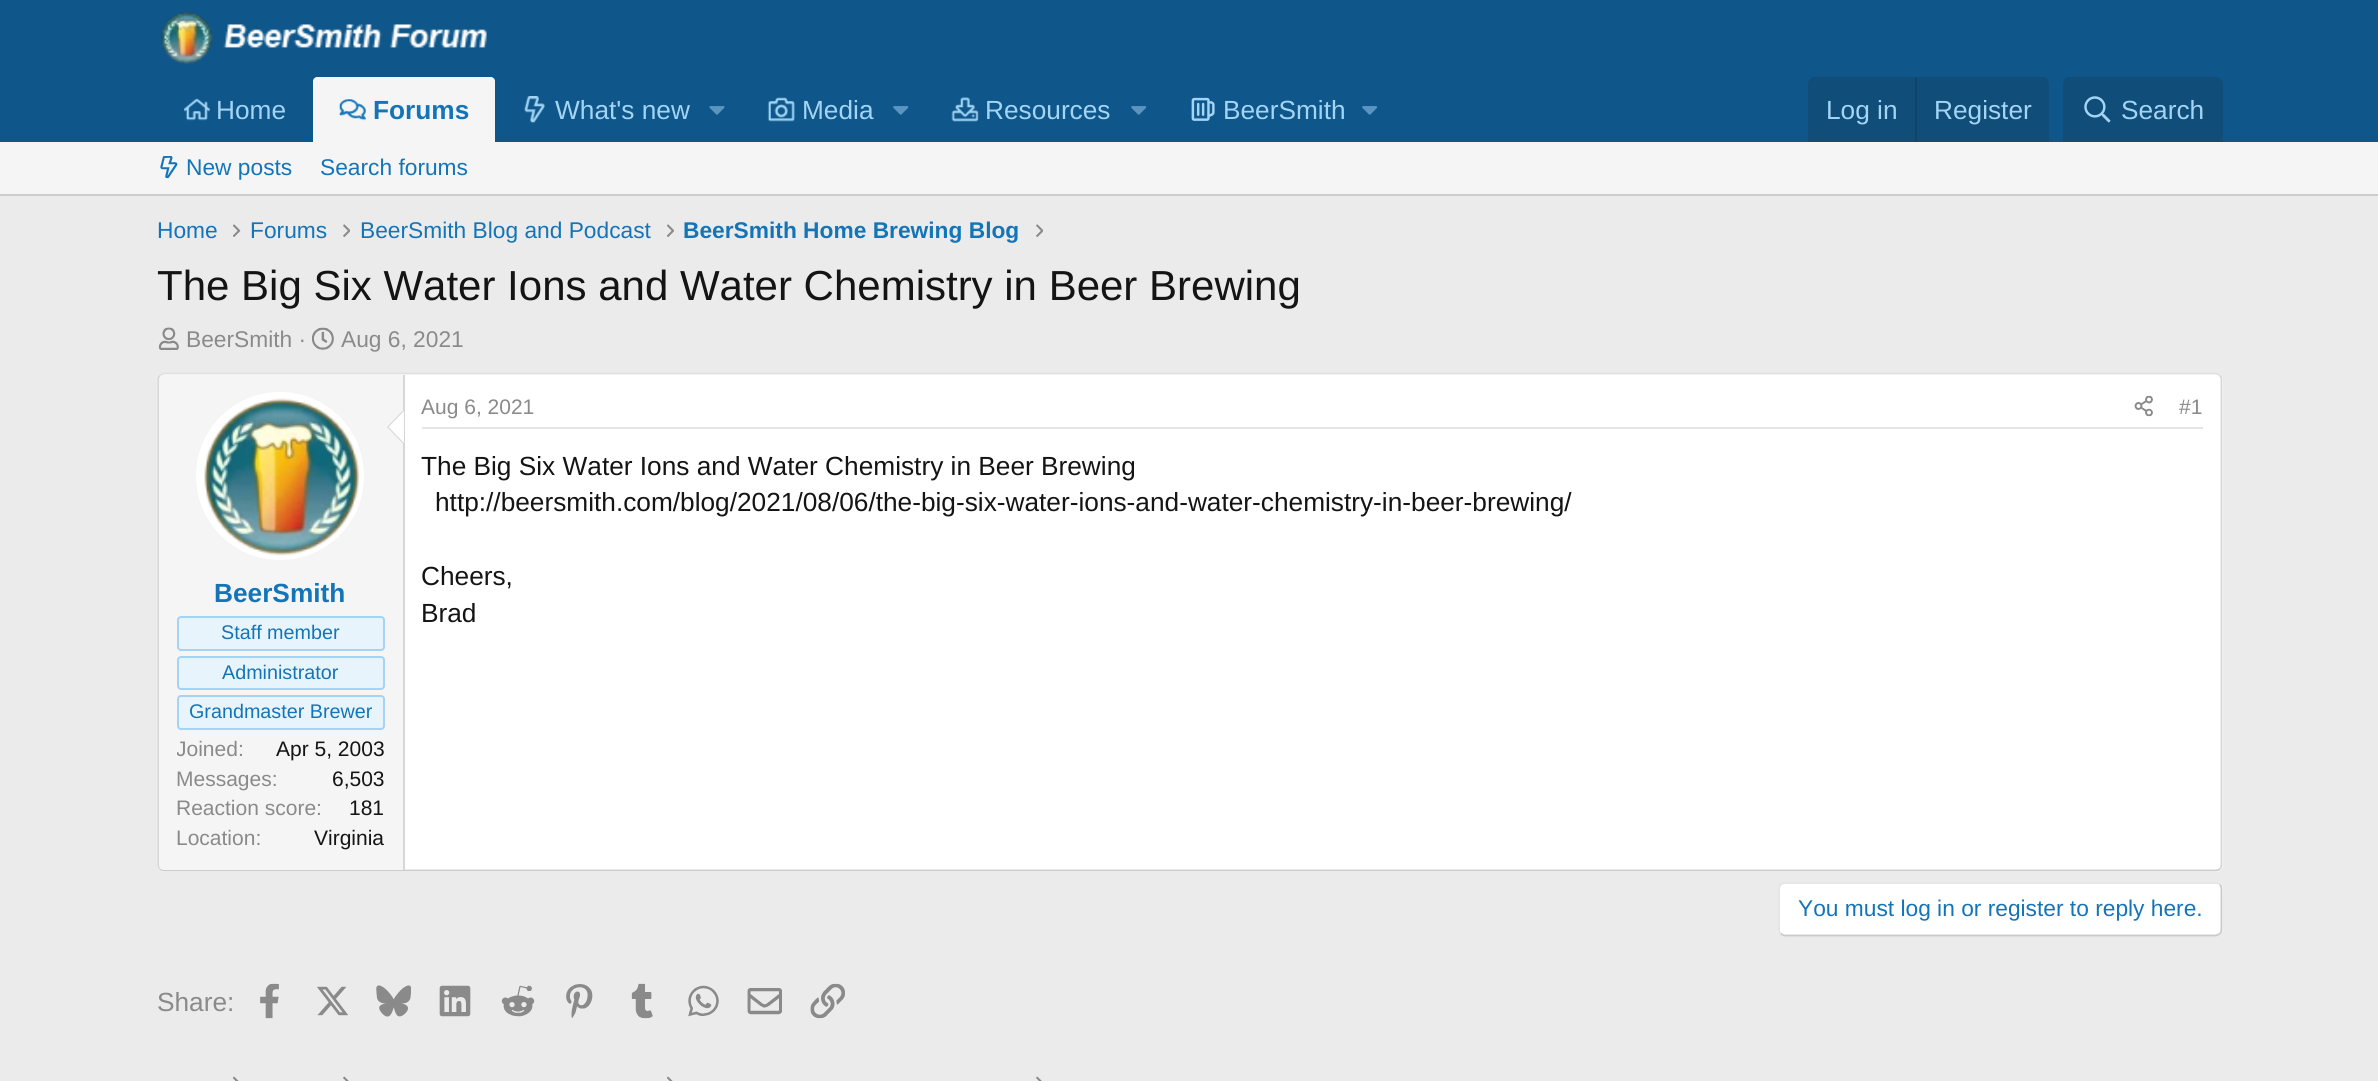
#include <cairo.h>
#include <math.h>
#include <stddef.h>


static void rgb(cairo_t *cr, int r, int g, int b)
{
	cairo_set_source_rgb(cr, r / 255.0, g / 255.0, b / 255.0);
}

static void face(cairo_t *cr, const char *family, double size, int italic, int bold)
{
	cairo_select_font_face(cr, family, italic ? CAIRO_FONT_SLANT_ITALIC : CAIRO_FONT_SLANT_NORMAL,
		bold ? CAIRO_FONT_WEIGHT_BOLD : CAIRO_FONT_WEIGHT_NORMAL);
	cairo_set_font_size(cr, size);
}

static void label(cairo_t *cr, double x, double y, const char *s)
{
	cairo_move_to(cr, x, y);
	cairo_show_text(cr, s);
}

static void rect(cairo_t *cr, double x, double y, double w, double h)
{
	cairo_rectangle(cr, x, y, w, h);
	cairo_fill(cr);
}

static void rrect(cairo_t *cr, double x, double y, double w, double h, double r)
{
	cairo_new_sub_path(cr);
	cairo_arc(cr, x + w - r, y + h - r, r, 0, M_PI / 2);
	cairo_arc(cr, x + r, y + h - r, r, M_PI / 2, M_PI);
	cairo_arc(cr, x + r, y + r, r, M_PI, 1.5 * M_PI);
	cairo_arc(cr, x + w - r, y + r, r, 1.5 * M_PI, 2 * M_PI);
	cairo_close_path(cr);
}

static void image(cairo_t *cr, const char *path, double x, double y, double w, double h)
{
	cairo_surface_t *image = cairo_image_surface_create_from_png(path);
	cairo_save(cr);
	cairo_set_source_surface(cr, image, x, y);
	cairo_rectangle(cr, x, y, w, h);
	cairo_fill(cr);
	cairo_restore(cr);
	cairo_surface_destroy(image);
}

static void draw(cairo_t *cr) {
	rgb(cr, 235, 235, 235);
	cairo_paint(cr);
	rgb(cr, 15, 87, 138);
	rect(cr, 0, 0, 2378, 142);
	image(cr, "image0.png", 160, 12, 327, 52);
	image(cr, "image1.png", 184, 98, 26, 23);
	face(cr, "Liberation Sans", 26.25, 0, 0);
	rgb(cr, 163, 212, 245);
	label(cr, 216, 119, "Home");
	rgb(cr, 245, 245, 245);
	cairo_new_path(cr);
	cairo_move_to(cr, 317, 77);
	cairo_line_to(cr, 491, 77);
	cairo_curve_to(cr, 493, 77, 495, 79, 495, 81);
	cairo_line_to(cr, 495, 142);
	cairo_line_to(cr, 313, 142);
	cairo_line_to(cr, 313, 81);
	cairo_curve_to(cr, 313, 79, 315, 77, 317, 77);
	cairo_close_path(cr);
	cairo_fill(cr);
	image(cr, "image2.png", 339, 99, 27, 22);
	face(cr, "Liberation Sans", 26.25, 0, 1);
	rgb(cr, 20, 116, 184);
	label(cr, 373, 119, "Forums");
	image(cr, "image3.png", 524, 96, 21, 27);
	face(cr, "Liberation Sans", 26.25, 0, 0);
	rgb(cr, 163, 212, 245);
	label(cr, 555, 119, "What's new");
	image(cr, "image4.png", 709, 106, 16, 9);
	image(cr, "image5.png", 767, 97, 28, 25);
	label(cr, 802, 119, "Media");
	image(cr, "image6.png", 893, 106, 16, 9);
	image(cr, "image7.png", 951, 97, 28, 25);
	label(cr, 985, 119, "Resources");
	image(cr, "image8.png", 1131, 106, 15, 9);
	image(cr, "image9.png", 1191, 97, 24, 24);
	label(cr, 1223, 119, "BeerSmith");
	image(cr, "image8.png", 1362, 106, 15, 9);
	rgb(cr, 16, 77, 120);
	cairo_new_path(cr);
	cairo_move_to(cr, 1815, 77);
	cairo_line_to(cr, 2042, 77);
	cairo_curve_to(cr, 2046, 77, 2049, 80, 2049, 84);
	cairo_line_to(cr, 2049, 142);
	cairo_line_to(cr, 1808, 142);
	cairo_line_to(cr, 1808, 84);
	cairo_curve_to(cr, 1808, 80, 1811, 77, 1815, 77);
	cairo_close_path(cr);
	cairo_fill(cr);
	rgb(cr, 163, 212, 245);
	label(cr, 1826, 119, "Log in");
	rgb(cr, 17, 68, 105);
	rect(cr, 1915, 77, 2, 65);
	rgb(cr, 163, 212, 245);
	label(cr, 1934, 119, "Register");
	rgb(cr, 16, 77, 120);
	cairo_new_path(cr);
	cairo_move_to(cr, 2070, 77);
	cairo_line_to(cr, 2216, 77);
	cairo_curve_to(cr, 2220, 77, 2223, 80, 2223, 84);
	cairo_line_to(cr, 2223, 142);
	cairo_line_to(cr, 2063, 142);
	cairo_line_to(cr, 2063, 84);
	cairo_curve_to(cr, 2063, 80, 2066, 77, 2070, 77);
	cairo_close_path(cr);
	cairo_fill(cr);
	image(cr, "image10.png", 2084, 96, 27, 27);
	rgb(cr, 163, 212, 245);
	label(cr, 2121, 119, "Search");
	rgb(cr, 245, 245, 245);
	rect(cr, 0, 142, 2378, 52);
	rgb(cr, 204, 204, 204);
	rect(cr, 0, 194, 2378, 2);
	image(cr, "image11.png", 160, 156, 18, 23);
	face(cr, "Liberation Sans", 22.75, 0, 0);
	rgb(cr, 20, 116, 184);
	label(cr, 186, 175, "New posts");
	label(cr, 320, 175, "Search forums");
	label(cr, 157, 238, "Home");
	image(cr, "image12.png", 233, 224, 8, 13);
	label(cr, 250, 238, "Forums");
	image(cr, "image13.png", 343, 224, 7, 13);
	label(cr, 360, 238, "BeerSmith Blog and Podcast");
	image(cr, "image14.png", 667, 224, 7, 13);
	face(cr, "Liberation Sans", 22.75, 0, 1);
	label(cr, 683, 238, "BeerSmith Home Brewing Blog");
	image(cr, "image13.png", 1036, 224, 7, 13);
	face(cr, "Liberation Sans", 42, 0, 0);
	rgb(cr, 20, 20, 20);
	label(cr, 157, 300, "The Big Six Water Ions and Water Chemistry in Beer Brewing");
	image(cr, "image15.png", 158, 327, 21, 23);
	face(cr, "Liberation Sans", 22.75, 0, 0);
	rgb(cr, 138, 138, 138);
	label(cr, 186, 347, "BeerSmith ·");
	image(cr, "image16.png", 312, 327, 22, 23);
	label(cr, 341, 347, "Aug 6, 2021");
	rgb(cr, 255, 255, 255);
	rrect(cr, 158, 373, 2065, 499, 7);
	cairo_fill(cr);
	cairo_new_path(cr);
	cairo_move_to(cr, 160, 375.5);
	cairo_curve_to(cr, 161.5, 374.5, 163, 373.5, 164.5, 373.5);
	cairo_line_to(cr, 2215.5, 373.5);
	cairo_curve_to(cr, 2217, 373.5, 2218.5, 374.5, 2220, 375.5);
	rgb(cr, 224, 224, 224);
	cairo_set_line_width(cr, 1.8);
	cairo_stroke(cr);
	cairo_new_path(cr);
	cairo_move_to(cr, 2220, 375.5);
	cairo_curve_to(cr, 2221, 376.5, 2221.5, 378, 2221.5, 380);
	cairo_line_to(cr, 2221.5, 864.5);
	cairo_curve_to(cr, 2221.5, 866, 2221, 867.5, 2220, 869);
	rgb(cr, 214, 214, 214);
	cairo_stroke(cr);
	cairo_new_path(cr);
	cairo_move_to(cr, 2220, 869);
	cairo_curve_to(cr, 2218.5, 870, 2217, 870.5, 2215.5, 870.5);
	cairo_line_to(cr, 164.5, 870.5);
	cairo_curve_to(cr, 163, 870.5, 161.5, 870, 160, 869);
	rgb(cr, 204, 204, 204);
	cairo_stroke(cr);
	cairo_new_path(cr);
	cairo_move_to(cr, 160, 869);
	cairo_curve_to(cr, 159, 867.5, 158.5, 866, 158.5, 864.5);
	cairo_line_to(cr, 158.5, 380);
	cairo_curve_to(cr, 158.5, 378, 159, 376.5, 160, 375.5);
	rgb(cr, 214, 214, 214);
	cairo_stroke(cr);
	rgb(cr, 229, 229, 229);
	rect(cr, 422, 427, 1781, 2);
	face(cr, "Liberation Sans", 21, 0, 0);
	rgb(cr, 138, 138, 138);
	label(cr, 421, 414, "Aug 6, 2021");
	image(cr, "image17.png", 2134, 395, 19, 22);
	label(cr, 2179, 414, "#1");
	face(cr, "Liberation Sans", 26.25, 0, 0);
	rgb(cr, 20, 20, 20);
	label(cr, 421, 475, "The Big Six Water Ions and Water Chemistry in Beer Brewing");
	label(cr, 435, 511, "http://beersmith.com/blog/2021/08/06/the-big-six-water-ions-and-water-chemistry-in-beer-brewing/");
	label(cr, 421, 585, "Cheers,");
	label(cr, 421, 622, "Brad");
	rgb(cr, 245, 245, 245);
	cairo_new_path(cr);
	cairo_move_to(cr, 164, 375);
	cairo_line_to(cr, 404, 375);
	cairo_line_to(cr, 404, 870);
	cairo_line_to(cr, 164, 870);
	cairo_curve_to(cr, 161, 870, 159, 868, 159, 865);
	cairo_line_to(cr, 159, 380);
	cairo_curve_to(cr, 159, 377, 161, 375, 164, 375);
	cairo_close_path(cr);
	cairo_fill(cr);
	rgb(cr, 214, 214, 214);
	rect(cr, 403, 375, 2, 495);
	rgb(cr, 255, 255, 255);
	cairo_arc(cr, 280, 476, 84, 0, 2 * M_PI);
	cairo_fill(cr);
	image(cr, "image18.png", 204, 398, 156, 158);
	rgb(cr, 214, 214, 214);
	cairo_new_path(cr);
	cairo_move_to(cr, 404, 409.5);
	cairo_line_to(cr, 404, 444.5);
	cairo_line_to(cr, 387, 427);
	cairo_close_path(cr);
	cairo_fill(cr);
	rgb(cr, 255, 255, 255);
	cairo_new_path(cr);
	cairo_move_to(cr, 404, 411);
	cairo_line_to(cr, 404, 443);
	cairo_line_to(cr, 388.5, 427);
	cairo_close_path(cr);
	cairo_fill(cr);
	face(cr, "Liberation Sans", 26.25, 0, 1);
	rgb(cr, 20, 116, 184);
	label(cr, 214, 602, "BeerSmith");
	rgb(cr, 232, 244, 252);
	rrect(cr, 178, 617, 206, 33, 3);
	cairo_fill_preserve(cr);
	rgb(cr, 163, 212, 245);
	cairo_set_line_width(cr, 2);
	cairo_stroke(cr);
	face(cr, "Liberation Sans", 19.75, 0, 0);
	rgb(cr, 20, 116, 184);
	label(cr, 221, 639, "Staff member");
	rgb(cr, 232, 244, 252);
	rrect(cr, 178, 657, 206, 32, 3);
	cairo_fill_preserve(cr);
	rgb(cr, 163, 212, 245);
	cairo_stroke(cr);
	rgb(cr, 20, 116, 184);
	label(cr, 222, 679, "Administrator");
	rgb(cr, 232, 244, 252);
	rrect(cr, 178, 696, 206, 33, 3);
	cairo_fill_preserve(cr);
	rgb(cr, 163, 212, 245);
	cairo_stroke(cr);
	rgb(cr, 20, 116, 184);
	label(cr, 189, 718, "Grandmaster Brewer");
	cairo_save(cr);
	cairo_rectangle(cr, 177, 735, 208, 30);
	cairo_clip(cr);
	face(cr, "Liberation Sans", 21, 0, 0);
	rgb(cr, 138, 138, 138);
	label(cr, 176, 756, "Joined");
	cairo_restore(cr);
	face(cr, "Liberation Sans", 21, 0, 0);
	rgb(cr, 138, 138, 138);
	label(cr, 238, 756, ":");
	rgb(cr, 20, 20, 20);
	label(cr, 276, 756, "Apr 5, 2003");
	rgb(cr, 138, 138, 138);
	label(cr, 176, 786, "Messages:");
	rgb(cr, 20, 20, 20);
	label(cr, 332, 786, "6,503");
	rgb(cr, 138, 138, 138);
	label(cr, 176, 815, "Reaction score:");
	rgb(cr, 20, 20, 20);
	label(cr, 349, 815, "181");
	rgb(cr, 138, 138, 138);
	label(cr, 176, 845, "Location:");
	rgb(cr, 20, 20, 20);
	label(cr, 314, 845, "Virginia");
	rgb(cr, 255, 255, 255);
	rrect(cr, 1778, 882, 445, 54, 7);
	cairo_fill(cr);
	cairo_new_path(cr);
	cairo_move_to(cr, 2220, 884.5);
	cairo_curve_to(cr, 2221, 886, 2221.5, 887.5, 2221.5, 889);
	cairo_line_to(cr, 2221.5, 929);
	cairo_curve_to(cr, 2221.5, 931, 2221, 932.5, 2220, 933.5);
	cairo_curve_to(cr, 2218.5, 934.5, 2217, 935.5, 2215.5, 935.5);
	cairo_line_to(cr, 1785, 935.5);
	cairo_curve_to(cr, 1783.5, 935.5, 1782, 934.5, 1780.5, 933.5);
	rgb(cr, 201, 201, 201);
	cairo_set_line_width(cr, 1.8);
	cairo_stroke(cr);
	cairo_new_path(cr);
	cairo_move_to(cr, 1780.5, 933.5);
	cairo_curve_to(cr, 1779.5, 932.5, 1779, 931, 1779, 929);
	cairo_line_to(cr, 1779, 889);
	cairo_curve_to(cr, 1779, 887.5, 1779.5, 886, 1780.5, 884.5);
	cairo_curve_to(cr, 1782, 883.5, 1783.5, 883, 1785, 883);
	cairo_line_to(cr, 2215.5, 883);
	cairo_curve_to(cr, 2217, 883, 2218.5, 883.5, 2220, 884.5);
	rgb(cr, 227, 227, 227);
	cairo_stroke(cr);
	face(cr, "Liberation Sans", 22.75, 0, 0);
	rgb(cr, 20, 116, 184);
	label(cr, 1798, 916, "You must log in or register to reply here.");
	face(cr, "Liberation Sans", 26.25, 0, 0);
	rgb(cr, 138, 138, 138);
	label(cr, 157, 1011, "Share:");
	image(cr, "image19.png", 260, 983, 19, 36);
	image(cr, "image20.png", 317, 986, 31, 30);
	image(cr, "image21.png", 376, 985, 35, 32);
	image(cr, "image22.png", 439, 985, 32, 32);
	image(cr, "image23.png", 501, 985, 34, 32);
	image(cr, "image24.png", 566, 984, 27, 34);
	image(cr, "image25.png", 631, 983, 22, 36);
	image(cr, "image26.png", 688, 985, 31, 32);
	image(cr, "image27.png", 747, 988, 35, 27);
	image(cr, "image28.png", 810, 983, 35, 36);
	image(cr, "image29.png", 233, 1076, 6, 5);
	image(cr, "image30.png", 343, 1076, 6, 5);
	image(cr, "image29.png", 667, 1076, 6, 5);
	image(cr, "image30.png", 1036, 1076, 6, 5);
}

int main(void) {
	cairo_surface_t *surface = cairo_image_surface_create(CAIRO_FORMAT_RGB24, 2378, 1081);
	cairo_t *cr = cairo_create(surface);
	cairo_font_options_t *options = cairo_font_options_create();
	cairo_font_options_set_hint_metrics(options, CAIRO_HINT_METRICS_OFF);
	cairo_font_options_set_hint_style(options, CAIRO_HINT_STYLE_NONE);
	cairo_set_font_options(cr, options);
	cairo_set_miter_limit(cr, 4);
	draw(cr);
	cairo_surface_write_to_png(surface, "render.png");
	cairo_font_options_destroy(options);
	cairo_destroy(cr);
	cairo_surface_destroy(surface);
	return 0;
}
